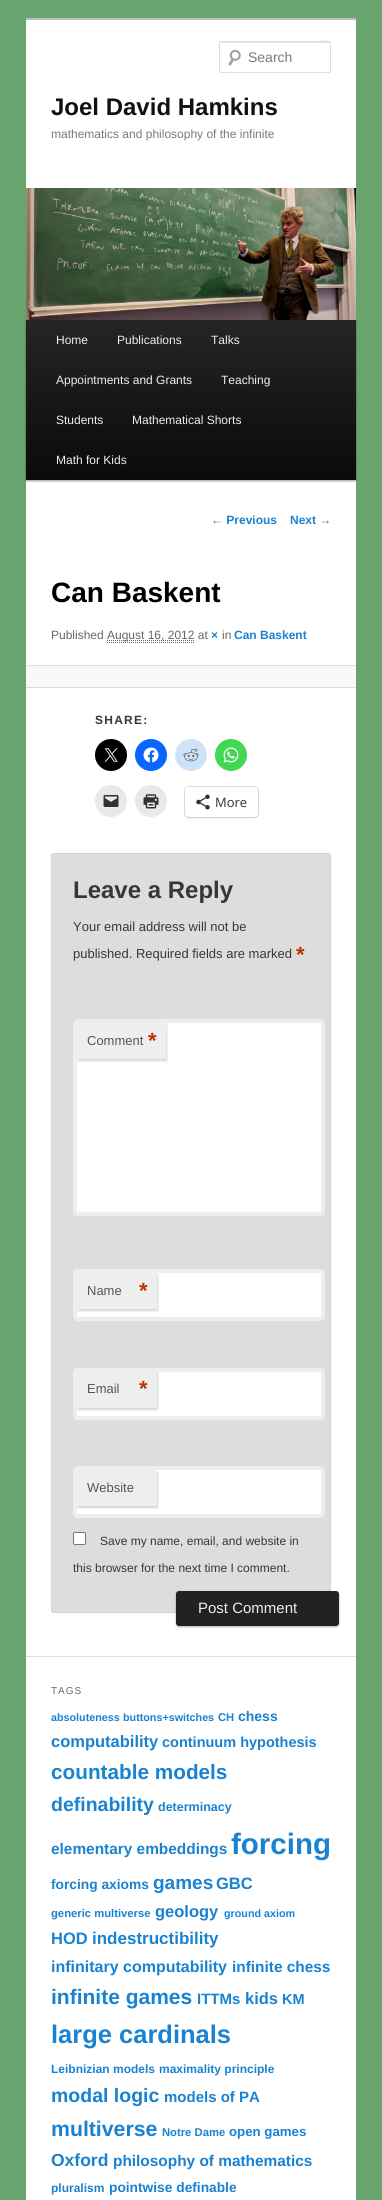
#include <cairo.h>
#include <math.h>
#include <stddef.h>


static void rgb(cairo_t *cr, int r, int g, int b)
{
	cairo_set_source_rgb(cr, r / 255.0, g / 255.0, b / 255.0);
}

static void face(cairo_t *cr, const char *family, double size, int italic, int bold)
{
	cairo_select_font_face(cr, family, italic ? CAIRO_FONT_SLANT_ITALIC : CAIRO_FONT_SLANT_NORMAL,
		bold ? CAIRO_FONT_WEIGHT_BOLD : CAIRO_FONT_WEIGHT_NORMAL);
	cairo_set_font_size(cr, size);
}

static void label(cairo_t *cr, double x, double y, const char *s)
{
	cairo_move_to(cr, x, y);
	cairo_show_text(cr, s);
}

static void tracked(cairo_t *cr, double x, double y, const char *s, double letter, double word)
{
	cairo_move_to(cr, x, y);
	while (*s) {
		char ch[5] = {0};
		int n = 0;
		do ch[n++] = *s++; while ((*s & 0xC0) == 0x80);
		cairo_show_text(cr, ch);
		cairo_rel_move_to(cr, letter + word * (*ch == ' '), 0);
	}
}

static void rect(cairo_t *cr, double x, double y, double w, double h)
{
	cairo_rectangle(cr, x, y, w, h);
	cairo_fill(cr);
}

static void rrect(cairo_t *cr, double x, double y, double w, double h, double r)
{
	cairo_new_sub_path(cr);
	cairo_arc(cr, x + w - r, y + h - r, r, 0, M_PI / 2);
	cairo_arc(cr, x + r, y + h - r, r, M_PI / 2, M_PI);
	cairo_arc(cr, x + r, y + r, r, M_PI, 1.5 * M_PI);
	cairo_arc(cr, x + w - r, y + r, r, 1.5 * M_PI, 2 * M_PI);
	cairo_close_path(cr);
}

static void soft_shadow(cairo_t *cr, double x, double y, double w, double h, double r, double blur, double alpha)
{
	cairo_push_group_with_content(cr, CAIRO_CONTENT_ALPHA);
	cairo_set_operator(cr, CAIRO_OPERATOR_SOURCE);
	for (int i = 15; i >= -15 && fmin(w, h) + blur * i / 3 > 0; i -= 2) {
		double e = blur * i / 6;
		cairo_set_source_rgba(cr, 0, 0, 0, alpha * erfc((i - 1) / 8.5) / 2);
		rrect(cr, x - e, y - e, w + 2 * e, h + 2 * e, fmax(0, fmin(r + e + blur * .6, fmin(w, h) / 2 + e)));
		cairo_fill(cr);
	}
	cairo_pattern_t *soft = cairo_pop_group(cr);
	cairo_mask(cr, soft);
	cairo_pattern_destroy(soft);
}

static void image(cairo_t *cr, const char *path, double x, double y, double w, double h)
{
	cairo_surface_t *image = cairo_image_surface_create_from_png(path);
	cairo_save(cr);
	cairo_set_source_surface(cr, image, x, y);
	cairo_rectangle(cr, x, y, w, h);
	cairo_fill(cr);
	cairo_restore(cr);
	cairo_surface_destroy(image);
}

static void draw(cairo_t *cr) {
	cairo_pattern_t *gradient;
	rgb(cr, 104, 165, 110);
	cairo_paint(cr);
	rgb(cr, 255, 255, 255);
	rect(cr, 26, 20, 330, 2180);
	rgb(cr, 187, 187, 187);
	rect(cr, 26, 18, 330, 2);
	image(cr, "image0.png", 228, 49, 13, 17);
	rgb(cr, 230, 230, 230);
	cairo_new_path(cr);
	cairo_move_to(cr, 221, 43);
	cairo_line_to(cr, 330, 43);
	cairo_line_to(cr, 330, 44);
	cairo_curve_to(cr, 330, 37, 315, 42, 311, 42);
	cairo_line_to(cr, 221, 42);
	cairo_line_to(cr, 220, 44);
	cairo_curve_to(cr, 220, 43, 220, 43, 221, 43);
	cairo_close_path(cr);
	cairo_fill(cr);
	rrect(cr, 219.5, 41.5, 111, 31, 1.5);
	rgb(cr, 221, 221, 221);
	cairo_set_line_width(cr, 1);
	cairo_stroke(cr);
	face(cr, "Liberation Sans", 14, 0, 0);
	rgb(cr, 122, 122, 122);
	label(cr, 248, 62, "Search");
	face(cr, "Liberation Sans", 24, 0, 1);
	rgb(cr, 17, 17, 17);
	label(cr, 51, 115, "Joel David Hamkins");
	face(cr, "Liberation Sans", 12, 0, 0);
	rgb(cr, 122, 122, 122);
	label(cr, 51, 138, "mathematics and philosophy of the infinite");
	rgb(cr, 0, 0, 0);
	soft_shadow(cr, 26, 321, 330, 160, 0, 1, 0.4);
	image(cr, "image1.png", 26, 188, 330, 132);
	gradient = cairo_pattern_create_linear(191, 320, 191, 480);
	cairo_pattern_add_color_stop_rgba(gradient, 0, 0.145, 0.145, 0.145, 1);
	cairo_pattern_add_color_stop_rgba(gradient, 1, 0.039, 0.039, 0.039, 1);
	cairo_set_source(cr, gradient);
	cairo_pattern_destroy(gradient);
	rect(cr, 26, 320, 330, 160);
	rgb(cr, 238, 238, 238);
	label(cr, 56, 344, "Home");
	label(cr, 117, 344, "Publications");
	label(cr, 211, 344, "Talks");
	label(cr, 56, 384, "Appointments and Grants");
	label(cr, 221, 384, "Teaching");
	label(cr, 56, 424, "Students");
	label(cr, 132, 424, "Mathematical Shorts");
	label(cr, 56, 464, "Math for Kids");
	face(cr, "Liberation Sans", 12, 0, 1);
	rgb(cr, 25, 130, 209);
	label(cr, 211, 524, "← Previous");
	label(cr, 290, 524, "Next →");
	face(cr, "Liberation Sans", 28, 0, 1);
	rgb(cr, 0, 0, 0);
	label(cr, 51, 602, "Can Baskent");
	face(cr, "Liberation Sans", 12, 0, 0);
	rgb(cr, 102, 102, 102);
	label(cr, 51, 639, "Published");
	cairo_new_path(cr);
	cairo_move_to(cr, 107, 640.5);
	cairo_line_to(cr, 194.5, 640.5);
	cairo_set_dash(cr, (double[]){1, 1}, 2, 0);
	cairo_stroke(cr);
	label(cr, 107, 639, "August 16, 2012 at");
	cairo_new_path(cr);
	cairo_move_to(cr, 107, 642.5);
	cairo_line_to(cr, 195, 642.5);
	cairo_stroke(cr);
	face(cr, "Liberation Sans", 12, 0, 1);
	rgb(cr, 25, 130, 209);
	label(cr, 211, 639, "×");
	face(cr, "Liberation Sans", 12, 0, 0);
	rgb(cr, 102, 102, 102);
	label(cr, 222, 639, "in");
	face(cr, "Liberation Sans", 12, 0, 1);
	rgb(cr, 25, 130, 209);
	label(cr, 234, 639, "Can Baskent");
	rgb(cr, 249, 249, 249);
	rect(cr, 26, 666, 330, 21);
	rgb(cr, 221, 221, 221);
	rect(cr, 26, 665, 330, 1);
	rect(cr, 26, 687, 330, 1);
	rgb(cr, 55, 55, 55);
	tracked(cr, 95, 724, "SHARE:", 1.25, 0);
	rgb(cr, 0, 0, 0);
	cairo_new_path(cr);
	cairo_arc(cr, 111, 755, 16, 0, 2 * M_PI);
	cairo_fill(cr);
	image(cr, "image2.png", 104, 748, 14, 14);
	rgb(cr, 8, 102, 255);
	cairo_arc(cr, 151, 755, 16, 0, 2 * M_PI);
	cairo_fill(cr);
	image(cr, "image3.png", 143, 747, 16, 16);
	rgb(cr, 206, 227, 248);
	cairo_arc(cr, 191, 755, 16, 0, 2 * M_PI);
	cairo_fill(cr);
	image(cr, "image4.png", 183, 748, 16, 14);
	rgb(cr, 67, 216, 84);
	cairo_arc(cr, 231, 755, 16, 0, 2 * M_PI);
	cairo_fill(cr);
	image(cr, "image5.png", 223, 747, 16, 16);
	rgb(cr, 233, 233, 233);
	cairo_arc(cr, 111, 801, 16, 0, 2 * M_PI);
	cairo_fill(cr);
	image(cr, "image6.png", 103, 795, 16, 12);
	cairo_arc(cr, 151, 801, 16, 0, 2 * M_PI);
	cairo_fill(cr);
	image(cr, "image7.png", 143, 794, 16, 15);
	rrect(cr, 184.5, 786.5, 74, 31, 4.5);
	rgb(cr, 224, 224, 224);
	cairo_set_dash(cr, NULL, 0, 0);
	cairo_stroke(cr);
	rgb(cr, 0, 0, 0);
	soft_shadow(cr, 185, 788, 73, 30, 4, 1, 0.12);
	rgb(cr, 255, 255, 255);
	rrect(cr, 185, 787, 73, 30, 4);
	cairo_fill(cr);
	image(cr, "image8.png", 196, 794, 14, 16);
	face(cr, "Open Sans", 13, 0, 0);
	rgb(cr, 44, 51, 56);
	label(cr, 215, 807, "More");
	rgb(cr, 221, 221, 221);
	rrect(cr, 51.5, 853.5, 279, 759, 2.5);
	cairo_fill_preserve(cr);
	rgb(cr, 211, 211, 211);
	cairo_stroke(cr);
	face(cr, "Liberation Sans", 24, 0, 1);
	rgb(cr, 55, 55, 55);
	label(cr, 73, 898, "Leave a Reply");
	face(cr, "Liberation Sans", 13, 0, 0);
	label(cr, 73, 931, "Your email address will not be");
	label(cr, 73, 958, "published. Required fields are marked");
	face(cr, "Liberation Sans", 22, 0, 1);
	rgb(cr, 189, 53, 0);
	label(cr, 296, 962, "*");
	rgb(cr, 255, 255, 255);
	rrect(cr, 75, 1021, 248, 193, 3);
	cairo_fill_preserve(cr);
	rgb(cr, 238, 238, 238);
	cairo_set_line_width(cr, 4);
	cairo_stroke(cr);
	rgb(cr, 204, 204, 204);
	soft_shadow(cr, 78, 1025, 89, 36, 0, 1, 0.8);
	rgb(cr, 238, 238, 238);
	rect(cr, 77, 1023, 89, 36);
	face(cr, "Liberation Sans", 13, 0, 0);
	rgb(cr, 85, 85, 85);
	label(cr, 87, 1045, "Comment");
	face(cr, "Liberation Sans", 22, 0, 1);
	rgb(cr, 189, 53, 0);
	label(cr, 148, 1048, "*");
	rgb(cr, 255, 255, 255);
	rrect(cr, 75, 1271, 248, 48, 3);
	cairo_fill_preserve(cr);
	rgb(cr, 238, 238, 238);
	cairo_stroke(cr);
	rgb(cr, 204, 204, 204);
	soft_shadow(cr, 78, 1275, 80, 36, 0, 1, 0.8);
	rgb(cr, 238, 238, 238);
	rect(cr, 77, 1273, 80, 36);
	face(cr, "Liberation Sans", 13, 0, 0);
	rgb(cr, 85, 85, 85);
	label(cr, 87, 1295, "Name");
	face(cr, "Liberation Sans", 22, 0, 1);
	rgb(cr, 189, 53, 0);
	label(cr, 139, 1298, "*");
	rgb(cr, 255, 255, 255);
	rrect(cr, 75, 1370, 248, 48, 3);
	cairo_fill_preserve(cr);
	rgb(cr, 238, 238, 238);
	cairo_stroke(cr);
	rgb(cr, 204, 204, 204);
	soft_shadow(cr, 78, 1373, 80, 37, 0, 1, 0.8);
	rgb(cr, 238, 238, 238);
	rect(cr, 77, 1372, 80, 36);
	face(cr, "Liberation Sans", 13, 0, 0);
	rgb(cr, 85, 85, 85);
	label(cr, 87, 1393, "Email");
	face(cr, "Liberation Sans", 22, 0, 1);
	rgb(cr, 189, 53, 0);
	label(cr, 139, 1396, "*");
	rgb(cr, 255, 255, 255);
	rrect(cr, 75, 1468, 248, 48, 3);
	cairo_fill_preserve(cr);
	rgb(cr, 238, 238, 238);
	cairo_stroke(cr);
	rgb(cr, 204, 204, 204);
	soft_shadow(cr, 78, 1472, 80, 36, 0, 1, 0.8);
	rgb(cr, 238, 238, 238);
	rect(cr, 77, 1470, 80, 36);
	face(cr, "Liberation Sans", 13, 0, 0);
	rgb(cr, 85, 85, 85);
	label(cr, 87, 1492, "Website");
	rgb(cr, 255, 255, 255);
	rrect(cr, 73.5, 1532.5, 12, 12, 1.5);
	cairo_fill_preserve(cr);
	rgb(cr, 118, 118, 118);
	cairo_set_line_width(cr, 1);
	cairo_stroke(cr);
	face(cr, "Liberation Sans", 12, 0, 0);
	rgb(cr, 55, 55, 55);
	label(cr, 100, 1545, "Save my name, email, and website in");
	label(cr, 73, 1572, "this browser for the next time I comment.");
	rgb(cr, 0, 0, 0);
	soft_shadow(cr, 176, 1592, 163, 35, 3, 1, 0.3);
	rgb(cr, 34, 34, 34);
	rrect(cr, 176, 1591, 163, 35, 3);
	cairo_fill(cr);
	face(cr, "Liberation Sans", 15, 0, 0);
	rgb(cr, 238, 238, 238);
	label(cr, 198, 1613, "Post Comment");
	rgb(cr, 221, 221, 221);
	rect(cr, 26, 1656, 330, 1);
	face(cr, "Liberation Sans", 10, 0, 0);
	rgb(cr, 102, 102, 102);
	tracked(cr, 51, 1694, "TAGS", 1, 0);
	face(cr, "Liberation Sans", 10.75, 0, 1);
	rgb(cr, 25, 130, 209);
	label(cr, 51, 1721, "absoluteness");
	label(cr, 123, 1721, "buttons+switches");
	face(cr, "Liberation Sans", 11.25, 0, 1);
	label(cr, 218, 1721, "CH");
	face(cr, "Liberation Sans", 14, 0, 1);
	label(cr, 238, 1721, "chess");
	face(cr, "Liberation Sans", 16.5, 0, 1);
	label(cr, 51, 1747, "computability");
	face(cr, "Liberation Sans", 14.5, 0, 1);
	label(cr, 162, 1747, "continuum hypothesis");
	face(cr, "Liberation Sans", 20.75, 0, 1);
	label(cr, 51, 1779, "countable models");
	face(cr, "Liberation Sans", 19.5, 0, 1);
	label(cr, 51, 1811, "definability");
	face(cr, "Liberation Sans", 12.5, 0, 1);
	label(cr, 158, 1811, "determinacy");
	face(cr, "Liberation Sans", 15.4, 0, 1);
	label(cr, 51, 1854, "elementary embeddings");
	face(cr, "Liberation Sans", 29.5, 0, 1);
	label(cr, 231, 1854, "forcing");
	face(cr, "Liberation Sans", 13.75, 0, 1);
	label(cr, 51, 1889, "forcing axioms");
	face(cr, "Liberation Sans", 19, 0, 1);
	label(cr, 153, 1889, "games");
	face(cr, "Liberation Sans", 16.5, 0, 1);
	label(cr, 216, 1889, "GBC");
	face(cr, "Liberation Sans", 11.25, 0, 1);
	label(cr, 51, 1917, "generic multiverse");
	face(cr, "Liberation Sans", 16.5, 0, 1);
	label(cr, 155, 1917, "geology");
	face(cr, "Liberation Sans", 10.75, 0, 1);
	label(cr, 224, 1917, "ground axiom");
	face(cr, "Liberation Sans", 16.5, 0, 1);
	label(cr, 51, 1944, "HOD");
	face(cr, "Liberation Sans", 17, 0, 1);
	label(cr, 92, 1944, "indestructibility");
	face(cr, "Liberation Sans", 16, 0, 1);
	label(cr, 51, 1972, "infinitary computability");
	face(cr, "Liberation Sans", 15.4, 0, 1);
	label(cr, 232, 1972, "infinite chess");
	face(cr, "Liberation Sans", 21, 0, 1);
	label(cr, 51, 2004, "infinite games");
	face(cr, "Liberation Sans", 15, 0, 1);
	label(cr, 197, 2004, "ITTMs");
	face(cr, "Liberation Sans", 16.5, 0, 1);
	label(cr, 245, 2004, "kids");
	face(cr, "Liberation Sans", 14.5, 0, 1);
	label(cr, 282, 2004, "KM");
	face(cr, "Liberation Sans", 25.5, 0, 1);
	label(cr, 51, 2043, "large cardinals");
	face(cr, "Liberation Sans", 12, 0, 1);
	label(cr, 51, 2073, "Leibnizian models");
	label(cr, 159, 2073, "maximality principle");
	face(cr, "Liberation Sans", 19.5, 0, 1);
	label(cr, 51, 2102, "modal logic");
	face(cr, "Liberation Sans", 15, 0, 1);
	label(cr, 164, 2102, "models of PA");
	face(cr, "Liberation Sans", 21.25, 0, 1);
	label(cr, 51, 2136, "multiverse");
	face(cr, "Liberation Sans", 11.25, 0, 1);
	label(cr, 162, 2136, "Notre Dame");
	face(cr, "Liberation Sans", 13.25, 0, 1);
	label(cr, 229, 2136, "open games");
	face(cr, "Liberation Sans", 17.5, 0, 1);
	label(cr, 51, 2166, "Oxford");
	face(cr, "Liberation Sans", 15.4, 0, 1);
	label(cr, 113, 2166, "philosophy of mathematics");
	face(cr, "Liberation Sans", 12, 0, 1);
	label(cr, 51, 2192, "pluralism");
	face(cr, "Liberation Sans", 13.75, 0, 1);
	label(cr, 109, 2192, "pointwise definable");
}

int main(void) {
	cairo_surface_t *surface = cairo_image_surface_create(CAIRO_FORMAT_RGB24, 382, 2200);
	cairo_t *cr = cairo_create(surface);
	cairo_font_options_t *options = cairo_font_options_create();
	cairo_font_options_set_hint_metrics(options, CAIRO_HINT_METRICS_OFF);
	cairo_font_options_set_hint_style(options, CAIRO_HINT_STYLE_NONE);
	cairo_set_font_options(cr, options);
	cairo_set_miter_limit(cr, 4);
	draw(cr);
	cairo_surface_write_to_png(surface, "render.png");
	cairo_font_options_destroy(options);
	cairo_destroy(cr);
	cairo_surface_destroy(surface);
	return 0;
}
